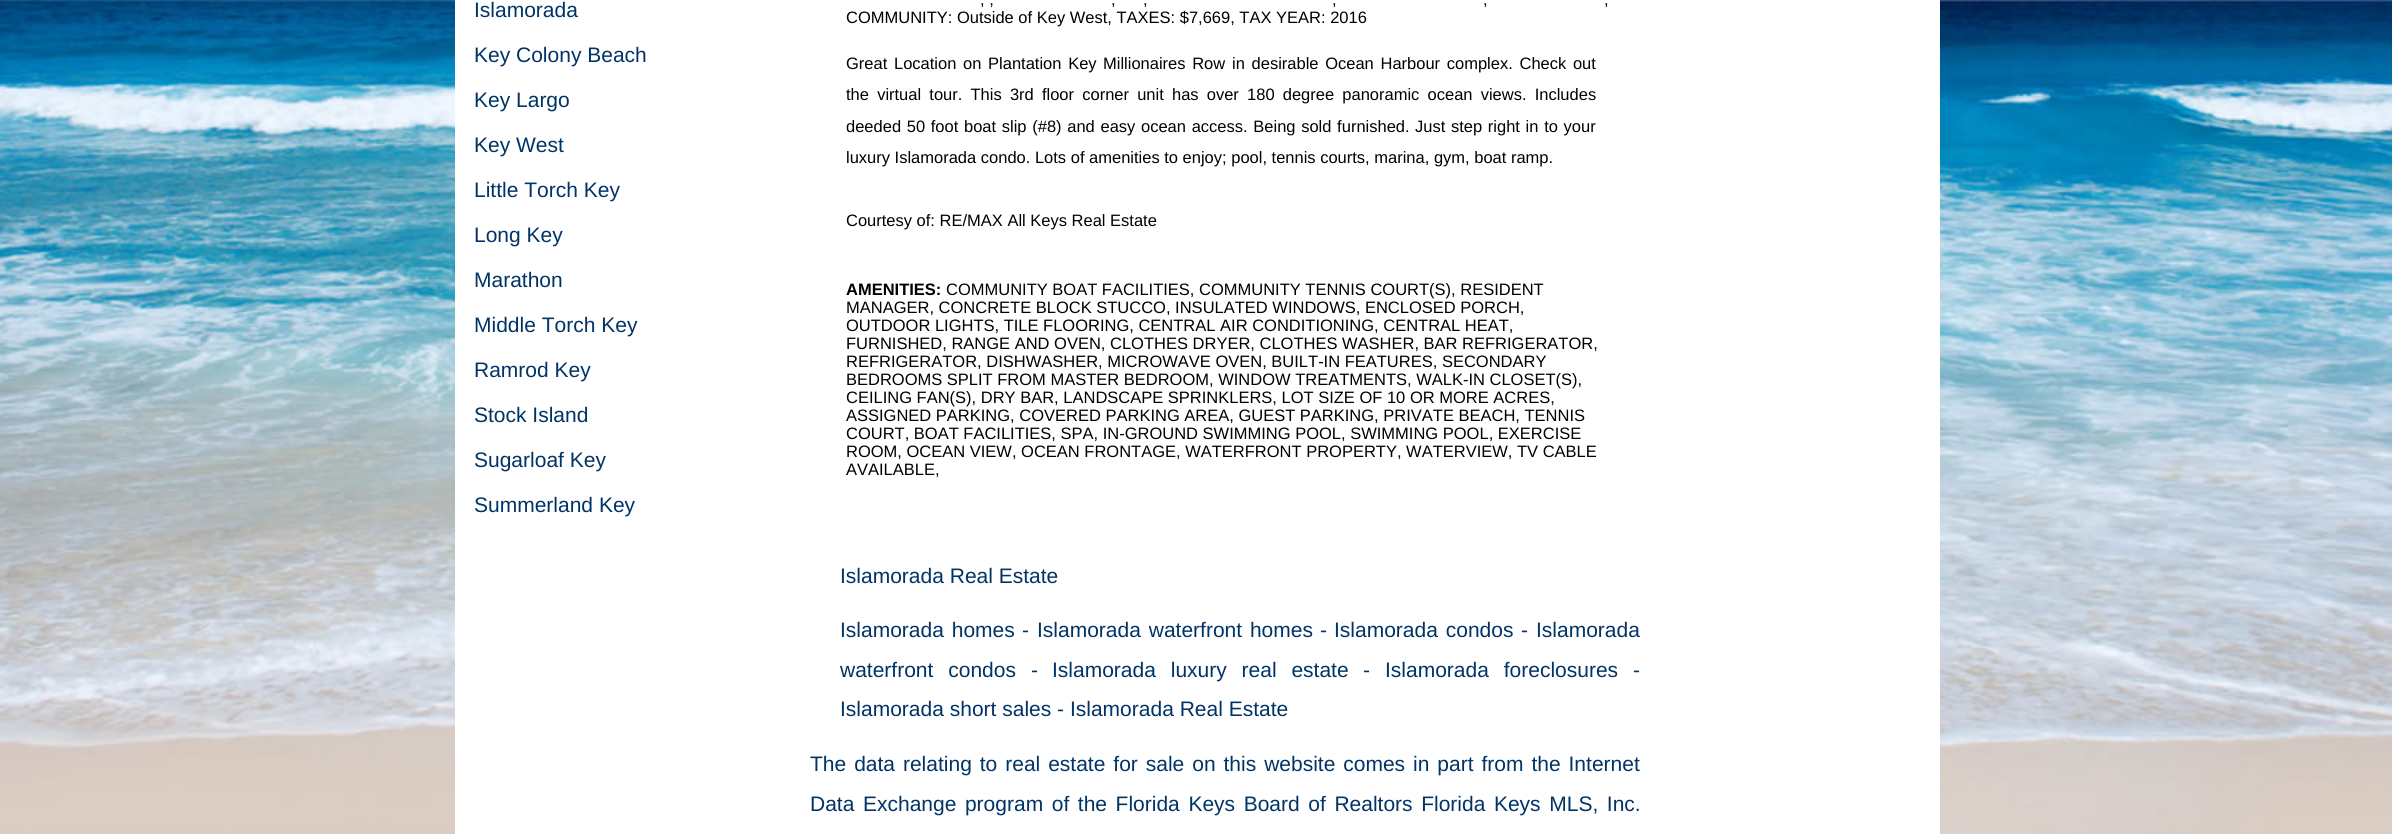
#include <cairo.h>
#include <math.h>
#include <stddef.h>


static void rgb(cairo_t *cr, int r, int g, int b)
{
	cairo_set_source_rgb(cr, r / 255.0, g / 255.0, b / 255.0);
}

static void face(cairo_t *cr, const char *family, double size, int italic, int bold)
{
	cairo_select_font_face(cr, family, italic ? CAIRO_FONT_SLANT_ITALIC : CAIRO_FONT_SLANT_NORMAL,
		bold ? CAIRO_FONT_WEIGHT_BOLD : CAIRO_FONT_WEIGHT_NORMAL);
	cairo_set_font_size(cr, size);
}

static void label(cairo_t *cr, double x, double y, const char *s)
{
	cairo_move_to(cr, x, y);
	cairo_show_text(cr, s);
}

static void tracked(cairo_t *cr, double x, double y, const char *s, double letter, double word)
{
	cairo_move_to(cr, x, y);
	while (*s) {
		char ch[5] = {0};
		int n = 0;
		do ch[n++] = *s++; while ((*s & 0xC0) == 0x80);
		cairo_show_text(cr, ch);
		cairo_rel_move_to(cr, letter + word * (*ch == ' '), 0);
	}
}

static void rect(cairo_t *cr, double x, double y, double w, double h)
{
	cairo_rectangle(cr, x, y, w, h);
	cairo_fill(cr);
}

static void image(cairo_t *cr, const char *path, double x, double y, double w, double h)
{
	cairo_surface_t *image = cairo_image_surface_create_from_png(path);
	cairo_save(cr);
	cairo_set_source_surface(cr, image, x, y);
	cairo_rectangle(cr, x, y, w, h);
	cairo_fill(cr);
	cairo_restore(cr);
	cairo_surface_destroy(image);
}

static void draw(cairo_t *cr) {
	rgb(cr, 255, 255, 255);
	cairo_paint(cr);
	image(cr, "image0.png", 0, 0, 2392, 834);
	rgb(cr, 255, 255, 255);
	rect(cr, 455, 0, 1485, 834);
	face(cr, "Liberation Sans", 21, 0, 0);
	rgb(cr, 0, 51, 102);
	label(cr, 474, 17, "Islamorada");
	label(cr, 474, 62, "Key Colony Beach");
	label(cr, 474, 107, "Key Largo");
	label(cr, 474, 152, "Key West");
	label(cr, 474, 197, "Little Torch Key");
	label(cr, 474, 242, "Long Key");
	label(cr, 474, 287, "Marathon");
	label(cr, 474, 332, "Middle Torch Key");
	label(cr, 474, 377, "Ramrod Key");
	label(cr, 474, 422, "Stock Island");
	label(cr, 474, 467, "Sugarloaf Key");
	label(cr, 474, 512, "Summerland Key");
	face(cr, "Liberation Sans", 16.5, 0, 0);
	rgb(cr, 0, 0, 0);
	label(cr, 980, 5, ", ,");
	label(cr, 1111, 5, ",");
	label(cr, 1143, 5, ",");
	label(cr, 1332, 5, ",");
	label(cr, 1483, 5, ",");
	label(cr, 1604, 5, ",");
	label(cr, 846, 23, "COMMUNITY: Outside of Key West, TAXES: $7,669, TAX YEAR: 2016");
	tracked(cr, 846, 69, "Great Location on Plantation Key", 0, 2.1);
	tracked(cr, 1103, 69, "Millionaires Row", 0, 2.1);
	tracked(cr, 1232, 69, "in desirable Ocean Harbour complex. Check out", 0, 2.1);
	tracked(cr, 846, 100, "the virtual tour. This 3rd floor corner unit has over 180 degree panoramic ocean views. Includes", 0, 3.6);
	tracked(cr, 846, 132, "deeded 50 foot boat slip (#8) and easy ocean access. Being sold furnished.", 0, 1.1);
	tracked(cr, 1415, 132, "Just step right in to your", 0, 1.1);
	label(cr, 846, 163, "luxury Islamorada condo. Lots of amenities to enjoy; pool, tennis courts, marina, gym, boat ramp.");
	label(cr, 846, 226, "Courtesy of: RE/MAX All Keys Real Estate");
	face(cr, "Liberation Sans", 16.5, 0, 1);
	label(cr, 846, 295, "AMENITIES:");
	face(cr, "Liberation Sans", 16.5, 0, 0);
	label(cr, 946, 295, "COMMUNITY BOAT FACILITIES, COMMUNITY TENNIS COURT(S), RESIDENT");
	label(cr, 846, 313, "MANAGER, CONCRETE BLOCK STUCCO, INSULATED WINDOWS, ENCLOSED PORCH,");
	label(cr, 846, 331, "OUTDOOR LIGHTS, TILE FLOORING, CENTRAL AIR CONDITIONING, CENTRAL HEAT,");
	label(cr, 846, 349, "FURNISHED, RANGE AND OVEN, CLOTHES DRYER, CLOTHES WASHER, BAR REFRIGERATOR,");
	label(cr, 846, 367, "REFRIGERATOR, DISHWASHER, MICROWAVE OVEN, BUILT-IN FEATURES, SECONDARY");
	label(cr, 846, 385, "BEDROOMS SPLIT FROM MASTER BEDROOM, WINDOW TREATMENTS, WALK-IN CLOSET(S),");
	label(cr, 846, 403, "CEILING FAN(S), DRY BAR, LANDSCAPE SPRINKLERS, LOT SIZE OF 10 OR MORE ACRES,");
	label(cr, 846, 421, "ASSIGNED PARKING, COVERED PARKING AREA, GUEST PARKING, PRIVATE BEACH, TENNIS");
	label(cr, 846, 439, "COURT, BOAT FACILITIES, SPA, IN-GROUND SWIMMING POOL, SWIMMING POOL, EXERCISE");
	label(cr, 846, 457, "ROOM, OCEAN VIEW, OCEAN FRONTAGE, WATERFRONT PROPERTY, WATERVIEW, TV CABLE");
	label(cr, 846, 475, "AVAILABLE,");
	face(cr, "Liberation Sans", 21, 0, 0);
	rgb(cr, 0, 51, 102);
	label(cr, 840, 583, "Islamorada Real Estate");
	tracked(cr, 840, 637, "Islamorada homes", 0, 2);
	label(cr, 1022, 637, "-");
	tracked(cr, 1037, 637, "Islamorada waterfront homes", 0, 2);
	label(cr, 1320, 637, "-");
	tracked(cr, 1334, 637, "Islamorada condos", 0, 2);
	label(cr, 1521, 637, "-");
	label(cr, 1536, 637, "Islamorada");
	tracked(cr, 840, 677, "waterfront condos", 0, 9);
	label(cr, 1031, 677, "-");
	tracked(cr, 1052, 677, "Islamorada luxury real estate", 0, 9);
	label(cr, 1363, 677, "-");
	tracked(cr, 1385, 677, "Islamorada foreclosures", 0, 9);
	label(cr, 1633, 677, "-");
	label(cr, 840, 716, "Islamorada short sales - Islamorada Real Estate");
	tracked(cr, 810, 771, "The data relating to real estate for sale on this website comes in part from the Internet", 0, 2.1);
	tracked(cr, 810, 811, "Data Exchange program of the Florida Keys Board of Realtors Florida Keys MLS, Inc.", 0, 2.75);
}

int main(void) {
	cairo_surface_t *surface = cairo_image_surface_create(CAIRO_FORMAT_RGB24, 2392, 834);
	cairo_t *cr = cairo_create(surface);
	cairo_font_options_t *options = cairo_font_options_create();
	cairo_font_options_set_hint_metrics(options, CAIRO_HINT_METRICS_OFF);
	cairo_font_options_set_hint_style(options, CAIRO_HINT_STYLE_NONE);
	cairo_set_font_options(cr, options);
	cairo_set_miter_limit(cr, 4);
	draw(cr);
	cairo_surface_write_to_png(surface, "render.png");
	cairo_font_options_destroy(options);
	cairo_destroy(cr);
	cairo_surface_destroy(surface);
	return 0;
}
